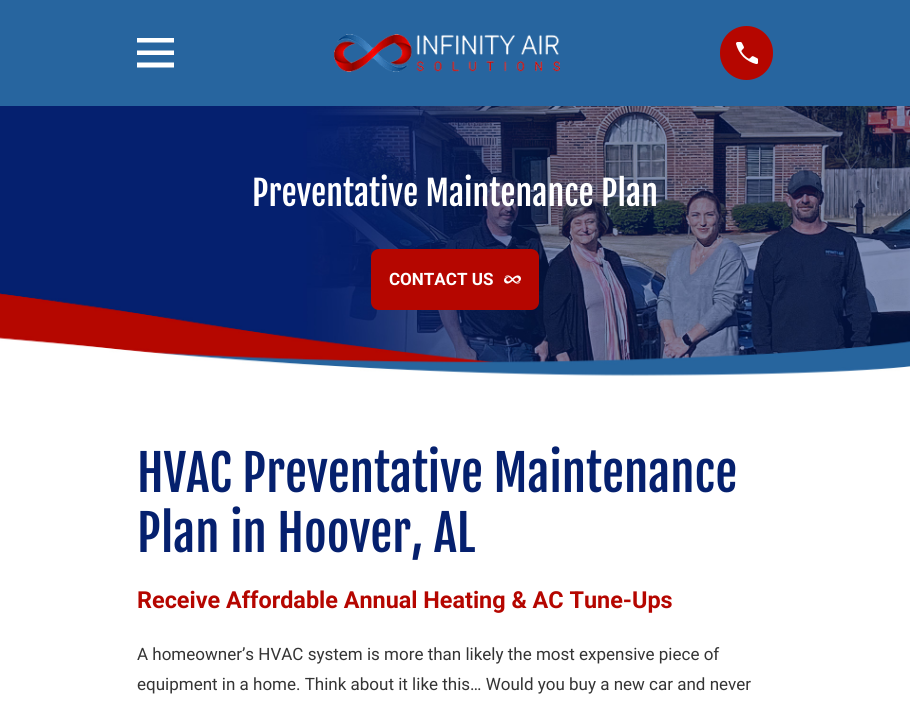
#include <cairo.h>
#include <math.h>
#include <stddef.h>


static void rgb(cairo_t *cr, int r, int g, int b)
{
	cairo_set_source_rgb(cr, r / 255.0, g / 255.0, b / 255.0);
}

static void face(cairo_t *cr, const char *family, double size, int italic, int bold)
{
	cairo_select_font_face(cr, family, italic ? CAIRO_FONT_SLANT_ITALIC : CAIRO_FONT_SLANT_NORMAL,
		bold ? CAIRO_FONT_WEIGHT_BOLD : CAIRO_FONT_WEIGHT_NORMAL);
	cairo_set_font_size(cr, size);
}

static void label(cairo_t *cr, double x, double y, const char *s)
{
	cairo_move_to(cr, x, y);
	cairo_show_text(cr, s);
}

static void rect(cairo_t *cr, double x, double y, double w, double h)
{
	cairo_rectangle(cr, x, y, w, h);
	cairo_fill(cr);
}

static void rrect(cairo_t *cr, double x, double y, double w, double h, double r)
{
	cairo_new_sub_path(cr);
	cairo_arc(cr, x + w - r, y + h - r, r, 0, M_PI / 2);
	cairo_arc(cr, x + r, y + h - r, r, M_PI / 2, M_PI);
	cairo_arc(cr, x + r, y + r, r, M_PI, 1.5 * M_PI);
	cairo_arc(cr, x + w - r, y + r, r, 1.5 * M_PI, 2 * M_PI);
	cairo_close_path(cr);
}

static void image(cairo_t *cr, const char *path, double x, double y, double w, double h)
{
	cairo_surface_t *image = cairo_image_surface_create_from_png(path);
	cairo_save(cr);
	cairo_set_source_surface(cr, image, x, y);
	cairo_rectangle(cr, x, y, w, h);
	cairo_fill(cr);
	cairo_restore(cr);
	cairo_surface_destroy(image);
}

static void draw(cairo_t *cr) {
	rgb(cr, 255, 255, 255);
	cairo_paint(cr);
	rgb(cr, 39, 101, 159);
	rect(cr, 0, 0, 910, 106);
	cairo_save(cr);
	cairo_rectangle(cr, 137, 34, 37, 38);
	cairo_clip(cr);
	rgb(cr, 255, 255, 255);
	cairo_new_path(cr);
	cairo_move_to(cr, 137, 38);
	cairo_line_to(cr, 137, 42.5);
	cairo_line_to(cr, 174.5, 42.5);
	cairo_line_to(cr, 174.5, 38);
	cairo_close_path(cr);
	cairo_move_to(cr, 137, 50.5);
	cairo_line_to(cr, 137, 55);
	cairo_line_to(cr, 174.5, 55);
	cairo_line_to(cr, 174.5, 50.5);
	cairo_close_path(cr);
	cairo_move_to(cr, 137, 62.5);
	cairo_line_to(cr, 137, 67.5);
	cairo_line_to(cr, 174.5, 67.5);
	cairo_line_to(cr, 174.5, 62.5);
	cairo_close_path(cr);
	cairo_fill(cr);
	cairo_restore(cr);
	image(cr, "image0.png", 334, 34, 226, 38);
	rgb(cr, 181, 6, 0);
	rrect(cr, 720, 26, 53, 54, 26.5);
	cairo_fill(cr);
	image(cr, "image1.png", 736, 42, 22, 22);
	image(cr, "image2.png", 0, 106, 910, 271);
	face(cr, "Fjalla One", 34, 0, 0);
	rgb(cr, 255, 255, 255);
	label(cr, 252, 206, "Preventative Maintenance Plan");
	rgb(cr, 181, 6, 0);
	rrect(cr, 371, 249, 168, 61, 8);
	cairo_fill(cr);
	face(cr, "Roboto", 17, 0, 1);
	rgb(cr, 255, 255, 255);
	label(cr, 389, 285, "CONTACT US");
	image(cr, "image3.png", 504, 275, 17, 9);
	face(cr, "Fjalla One", 49.25, 0, 0);
	rgb(cr, 5, 32, 110);
	label(cr, 137, 492, "HVAC Preventative Maintenance");
	label(cr, 137, 552, "Plan in Hoover, AL");
	face(cr, "Roboto", 23.4, 0, 1);
	rgb(cr, 181, 6, 0);
	label(cr, 137, 608, "Receive Affordable Annual Heating & AC Tune-Ups");
	face(cr, "Roboto", 17, 0, 0);
	rgb(cr, 52, 52, 52);
	label(cr, 137, 660, "A homeowner’s HVAC system is more than likely the most expensive piece of");
	label(cr, 137, 690, "equipment in a home. Think about it like this… Would you buy a new car and never");
}

int main(void) {
	cairo_surface_t *surface = cairo_image_surface_create(CAIRO_FORMAT_RGB24, 910, 714);
	cairo_t *cr = cairo_create(surface);
	cairo_font_options_t *options = cairo_font_options_create();
	cairo_font_options_set_hint_metrics(options, CAIRO_HINT_METRICS_OFF);
	cairo_font_options_set_hint_style(options, CAIRO_HINT_STYLE_NONE);
	cairo_set_font_options(cr, options);
	cairo_set_miter_limit(cr, 4);
	draw(cr);
	cairo_surface_write_to_png(surface, "render.png");
	cairo_font_options_destroy(options);
	cairo_destroy(cr);
	cairo_surface_destroy(surface);
	return 0;
}
